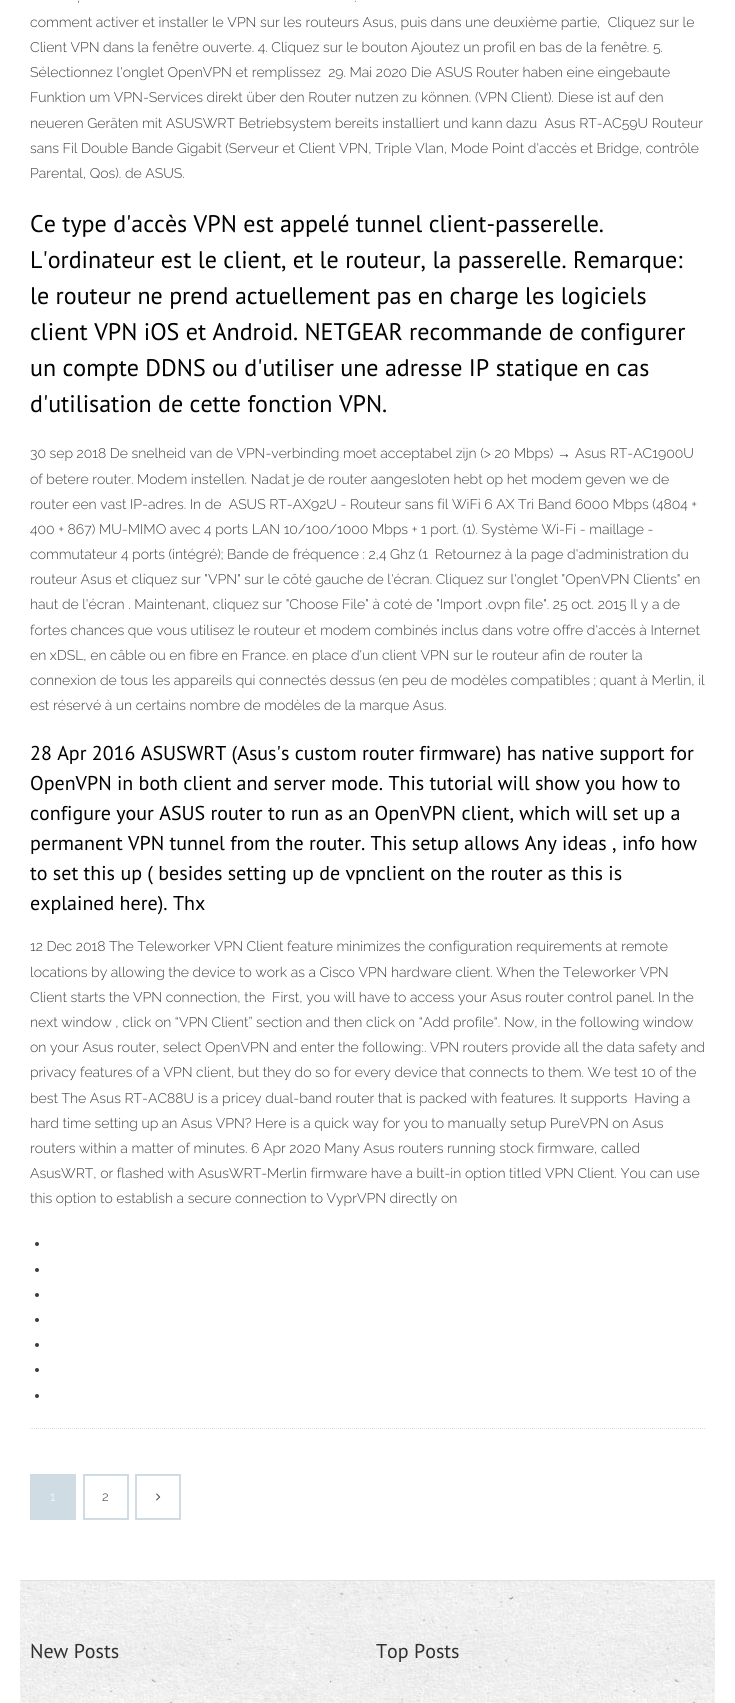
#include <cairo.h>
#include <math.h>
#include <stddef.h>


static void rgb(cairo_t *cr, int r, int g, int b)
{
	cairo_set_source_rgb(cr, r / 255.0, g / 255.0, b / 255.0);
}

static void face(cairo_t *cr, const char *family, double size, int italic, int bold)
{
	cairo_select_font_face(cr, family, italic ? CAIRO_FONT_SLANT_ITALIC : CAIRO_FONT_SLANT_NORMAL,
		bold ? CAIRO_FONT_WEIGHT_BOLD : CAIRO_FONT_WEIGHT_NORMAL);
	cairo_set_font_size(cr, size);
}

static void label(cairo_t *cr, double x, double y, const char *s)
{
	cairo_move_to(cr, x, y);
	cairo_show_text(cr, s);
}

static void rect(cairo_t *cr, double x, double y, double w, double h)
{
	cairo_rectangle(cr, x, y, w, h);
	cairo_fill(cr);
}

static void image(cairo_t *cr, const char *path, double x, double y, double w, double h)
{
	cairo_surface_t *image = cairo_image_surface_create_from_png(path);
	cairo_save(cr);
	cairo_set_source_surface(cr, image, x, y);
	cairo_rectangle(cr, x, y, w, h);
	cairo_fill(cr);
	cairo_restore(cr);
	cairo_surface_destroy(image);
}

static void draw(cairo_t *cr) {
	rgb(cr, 255, 255, 255);
	cairo_paint(cr);
	cairo_new_path(cr);
	cairo_move_to(cr, 30, 1428.5);
	cairo_line_to(cr, 705, 1428.5);
	rgb(cr, 221, 221, 221);
	cairo_set_line_width(cr, 1);
	cairo_set_dash(cr, (double[]){1, 1}, 2, 0);
	cairo_stroke(cr);
	face(cr, "Raleway Light", 14, 0, 0);
	rgb(cr, 61, 61, 61);
	label(cr, 77, 2, ",");
	label(cr, 354, 2, ".");
	label(cr, 30, 27, "comment activer et installer le VPN sur les routeurs Asus, puis dans une deuxième partie,  Cliquez sur le");
	label(cr, 30, 52, "Client VPN dans la fenêtre ouverte. 4. Cliquez sur le bouton Ajoutez un profil en bas de la fenêtre. 5.");
	label(cr, 30, 77, "Sélectionnez l'onglet OpenVPN et remplissez  29. Mai 2020 Die ASUS Router haben eine eingebaute");
	label(cr, 30, 102, "Funktion um VPN-Services direkt über den Router nutzen zu können. (VPN Client). Diese ist auf den");
	label(cr, 30, 128, "neueren Geräten mit ASUSWRT Betriebsystem bereits installiert und kann dazu  Asus RT-AC59U Routeur");
	label(cr, 30, 153, "sans Fil Double Bande Gigabit (Serveur et Client VPN, Triple Vlan, Mode Point d'accès et Bridge, contrôle");
	label(cr, 30, 178, "Parental, Qos). de ASUS.");
	face(cr, "PT Sans", 24, 0, 0);
	rgb(cr, 0, 0, 0);
	label(cr, 30, 232, "Ce type d'accès VPN est appelé tunnel client-passerelle.");
	label(cr, 30, 268, "L'ordinateur est le client, et le routeur, la passerelle. Remarque:");
	label(cr, 30, 304, "le routeur ne prend actuellement pas en charge les logiciels");
	label(cr, 30, 340, "client VPN iOS et Android. NETGEAR recommande de configurer");
	label(cr, 30, 376, "un compte DDNS ou d'utiliser une adresse IP statique en cas");
	label(cr, 30, 412, "d'utilisation de cette fonction VPN.");
	face(cr, "Raleway Light", 14, 0, 0);
	rgb(cr, 61, 61, 61);
	label(cr, 30, 458, "30 sep 2018 De snelheid van de VPN-verbinding moet acceptabel zijn (> 20 Mbps)");
	face(cr, "Liberation Sans", 14, 0, 0);
	label(cr, 557, 458, "→");
	face(cr, "Raleway Light", 14, 0, 0);
	label(cr, 575, 458, "Asus RT-AC1900U");
	label(cr, 30, 484, "of betere router. Modem instellen. Nadat je de router aangesloten hebt op het modem geven we de");
	label(cr, 30, 509, "router een vast IP-adres. In de  ASUS RT-AX92U - Routeur sans fil WiFi 6 AX Tri Band 6000 Mbps (4804 +");
	label(cr, 30, 534, "400 + 867) MU-MIMO avec 4 ports LAN 10/100/1000 Mbps + 1 port. (1). Système Wi-Fi - maillage -");
	label(cr, 30, 559, "commutateur 4 ports (intégré); Bande de fréquence : 2,4 Ghz (1  Retournez à la page d'administration du");
	label(cr, 30, 584, "routeur Asus et cliquez sur \"VPN\" sur le côté gauche de l'écran. Cliquez sur l'onglet \"OpenVPN Clients\" en");
	label(cr, 30, 609, "haut de l'écran . Maintenant, cliquez sur \"Choose File\" à coté de \"Import .ovpn file\". 25 oct. 2015 Il y a de");
	label(cr, 30, 635, "fortes chances que vous utilisez le routeur et modem combinés inclus dans votre offre d'accès à Internet");
	label(cr, 30, 660, "en xDSL, en câble ou en fibre en France. en place d'un client VPN sur le routeur afin de router la");
	label(cr, 30, 685, "connexion de tous les appareils qui connectés dessus (en peu de modèles compatibles ; quant à Merlin, il");
	label(cr, 30, 710, "est réservé à un certains nombre de modèles de la marque Asus.");
	face(cr, "PT Sans", 20, 0, 0);
	rgb(cr, 0, 0, 0);
	label(cr, 30, 760, "28 Apr 2016 ASUSWRT (Asus's custom router firmware) has native support for");
	label(cr, 30, 790, "OpenVPN in both client and server mode. This tutorial will show you how to");
	label(cr, 30, 820, "configure your ASUS router to run as an OpenVPN client, which will set up a");
	label(cr, 30, 850, "permanent VPN tunnel from the router. This setup allows Any ideas , info how");
	label(cr, 30, 880, "to set this up ( besides setting up de vpnclient on the router as this is");
	label(cr, 30, 910, "explained here). Thx");
	face(cr, "Raleway Light", 14, 0, 0);
	rgb(cr, 61, 61, 61);
	label(cr, 30, 951, "12 Dec 2018 The Teleworker VPN Client feature minimizes the configuration requirements at remote");
	label(cr, 30, 977, "locations by allowing the device to work as a Cisco VPN hardware client. When the Teleworker VPN");
	label(cr, 30, 1002, "Client starts the VPN connection, the  First, you will have to access your Asus router control panel. In the");
	label(cr, 30, 1027, "next window , click on “VPN Client” section and then click on “Add profile“. Now, in the following window");
	label(cr, 30, 1052, "on your Asus router, select OpenVPN and enter the following:. VPN routers provide all the data safety and");
	label(cr, 30, 1077, "privacy features of a VPN client, but they do so for every device that connects to them. We test 10 of the");
	label(cr, 30, 1103, "best The Asus RT-AC88U is a pricey dual-band router that is packed with features. It supports  Having a");
	label(cr, 30, 1128, "hard time setting up an Asus VPN? Here is a quick way for you to manually setup PureVPN on Asus");
	label(cr, 30, 1153, "routers within a matter of minutes. 6 Apr 2020 Many Asus routers running stock firmware, called");
	label(cr, 30, 1178, "AsusWRT, or flashed with AsusWRT-Merlin firmware have a built-in option titled VPN Client. You can use");
	label(cr, 30, 1203, "this option to establish a secure connection to VyprVPN directly on");
	cairo_new_path(cr);
	cairo_arc(cr, 37, 1244, 2, 0, 2 * M_PI);
	cairo_fill(cr);
	cairo_arc(cr, 37, 1270, 2, 0, 2 * M_PI);
	cairo_fill(cr);
	cairo_arc(cr, 37, 1295, 2, 0, 2 * M_PI);
	cairo_fill(cr);
	cairo_arc(cr, 37, 1320, 2, 0, 2 * M_PI);
	cairo_fill(cr);
	cairo_arc(cr, 37, 1345, 2, 0, 2 * M_PI);
	cairo_fill(cr);
	cairo_arc(cr, 37, 1370, 2, 0, 2 * M_PI);
	cairo_fill(cr);
	cairo_arc(cr, 37, 1396, 2, 0, 2 * M_PI);
	cairo_fill(cr);
	cairo_rectangle(cr, 31, 1475, 44, 44);
	rgb(cr, 207, 220, 227);
	cairo_set_line_width(cr, 2);
	cairo_set_dash(cr, NULL, 0, 0);
	cairo_stroke(cr);
	rect(cr, 32, 1476, 42, 42);
	face(cr, "Raleway Light", 13, 0, 0);
	rgb(cr, 255, 255, 255);
	label(cr, 50, 1501, "1");
	cairo_rectangle(cr, 84, 1475, 44, 44);
	rgb(cr, 207, 220, 227);
	cairo_stroke(cr);
	rgb(cr, 61, 61, 61);
	label(cr, 102, 1501, "2");
	cairo_rectangle(cr, 136, 1475, 44, 44);
	rgb(cr, 207, 220, 227);
	cairo_stroke(cr);
	image(cr, "image0.png", 156, 1493, 5, 8);
	image(cr, "image1.png", 20, 1581, 695, 122);
	rgb(cr, 225, 225, 225);
	rect(cr, 20, 1580, 695, 1);
	face(cr, "PT Sans", 20, 0, 0);
	rgb(cr, 47, 47, 47);
	label(cr, 30, 1658, "New Posts");
	label(cr, 376, 1658, "Top Posts");
}

int main(void) {
	cairo_surface_t *surface = cairo_image_surface_create(CAIRO_FORMAT_RGB24, 735, 1703);
	cairo_t *cr = cairo_create(surface);
	cairo_font_options_t *options = cairo_font_options_create();
	cairo_font_options_set_hint_metrics(options, CAIRO_HINT_METRICS_OFF);
	cairo_font_options_set_hint_style(options, CAIRO_HINT_STYLE_NONE);
	cairo_set_font_options(cr, options);
	cairo_set_miter_limit(cr, 4);
	draw(cr);
	cairo_surface_write_to_png(surface, "render.png");
	cairo_font_options_destroy(options);
	cairo_destroy(cr);
	cairo_surface_destroy(surface);
	return 0;
}
